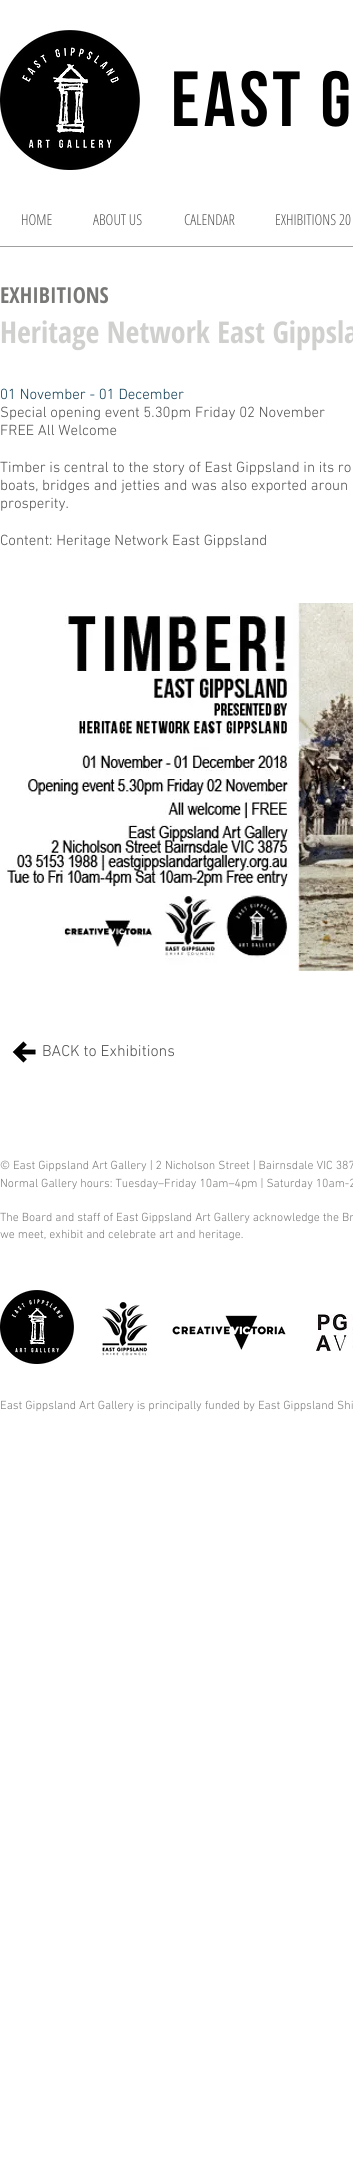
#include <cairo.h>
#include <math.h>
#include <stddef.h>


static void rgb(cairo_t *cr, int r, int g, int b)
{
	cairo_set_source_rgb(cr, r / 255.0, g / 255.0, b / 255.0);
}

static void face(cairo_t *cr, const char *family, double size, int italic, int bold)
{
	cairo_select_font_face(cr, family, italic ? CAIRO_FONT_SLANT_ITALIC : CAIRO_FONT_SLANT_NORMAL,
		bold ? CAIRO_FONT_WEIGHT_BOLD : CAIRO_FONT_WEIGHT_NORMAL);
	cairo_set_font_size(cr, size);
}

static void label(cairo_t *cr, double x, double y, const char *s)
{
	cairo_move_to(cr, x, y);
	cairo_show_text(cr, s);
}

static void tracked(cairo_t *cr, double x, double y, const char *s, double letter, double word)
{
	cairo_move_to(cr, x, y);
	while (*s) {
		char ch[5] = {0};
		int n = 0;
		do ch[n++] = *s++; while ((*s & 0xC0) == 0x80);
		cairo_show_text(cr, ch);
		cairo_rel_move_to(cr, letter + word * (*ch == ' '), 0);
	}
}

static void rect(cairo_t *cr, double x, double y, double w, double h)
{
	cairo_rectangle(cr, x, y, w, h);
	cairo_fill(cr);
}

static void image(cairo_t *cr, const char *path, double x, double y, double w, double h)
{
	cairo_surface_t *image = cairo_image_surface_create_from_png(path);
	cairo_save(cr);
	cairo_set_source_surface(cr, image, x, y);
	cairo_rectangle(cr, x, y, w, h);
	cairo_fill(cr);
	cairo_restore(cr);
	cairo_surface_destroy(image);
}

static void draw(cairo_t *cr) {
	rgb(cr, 255, 255, 255);
	cairo_paint(cr);
	image(cr, "image0.png", 0, 30, 140, 140);
	face(cr, "Bebas Neue", 78, 0, 1);
	rgb(cr, 0, 0, 0);
	tracked(cr, 171, 126, "EAST G", 4, 0);
	face(cr, "Open Sans Condensed Light", 15, 0, 0);
	rgb(cr, 80, 80, 80);
	label(cr, 21, 225, "HOME");
	label(cr, 93, 225, "ABOUT US");
	label(cr, 184, 225, "CALENDAR");
	label(cr, 275, 225, "EXHIBITIONS 20");
	rgb(cr, 160, 160, 159);
	rect(cr, 0, 246, 353, 1);
	face(cr, "Open Sans Condensed", 22, 0, 1);
	rgb(cr, 120, 120, 119);
	label(cr, 0, 303, "EXHIBITIONS");
	face(cr, "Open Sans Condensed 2", 30, 0, 1);
	rgb(cr, 208, 208, 207);
	label(cr, 0, 343, "Heritage Network East Gippsla");
	face(cr, "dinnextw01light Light", 15, 0, 0);
	rgb(cr, 14, 60, 83);
	label(cr, 0, 399, "01 November - 01 December");
	rgb(cr, 80, 80, 80);
	label(cr, 0, 417, "Special opening event 5.30pm Friday 02 November");
	label(cr, 0, 435, "FREE All Welcome");
	label(cr, 0, 472, "Timber is central to the story of East Gippsland in its ro");
	label(cr, 0, 490, "boats, bridges and jetties and was also exported aroun");
	label(cr, 0, 508, "prosperity.");
	label(cr, 0, 545, "Content: Heritage Network East Gippsland");
	image(cr, "image1.png", 5, 603, 348, 369);
	image(cr, "image2.png", 12, 1041, 24, 22);
	face(cr, "dinnextw01light Light", 16, 0, 0);
	label(cr, 42, 1056, "BACK to Exhibitions");
	face(cr, "dinnextw01light Light", 12, 0, 0);
	rgb(cr, 120, 120, 119);
	label(cr, 0, 1169, "© East Gippsland Art Gallery | 2 Nicholson Street | Bairnsdale VIC 387");
	label(cr, 0, 1187, "Normal Gallery hours: Tuesday–Friday 10am–4pm | Saturday 10am-2");
	label(cr, 0, 1221, "The Board and staff of East Gippsland Art Gallery acknowledge the Br");
	label(cr, 0, 1238, "we meet, exhibit and celebrate art and heritage.");
	image(cr, "image3.png", 0, 1290, 74, 74);
	image(cr, "image4.png", 102, 1302, 46, 54);
	image(cr, "image5.png", 172, 1315, 114, 35);
	image(cr, "image6.png", 316, 1314, 37, 37);
	label(cr, 0, 1409, "East Gippsland Art Gallery is principally funded by East Gippsland Shi");
}

int main(void) {
	cairo_surface_t *surface = cairo_image_surface_create(CAIRO_FORMAT_RGB24, 353, 2182);
	cairo_t *cr = cairo_create(surface);
	cairo_font_options_t *options = cairo_font_options_create();
	cairo_font_options_set_hint_metrics(options, CAIRO_HINT_METRICS_OFF);
	cairo_font_options_set_hint_style(options, CAIRO_HINT_STYLE_NONE);
	cairo_set_font_options(cr, options);
	cairo_set_miter_limit(cr, 4);
	draw(cr);
	cairo_surface_write_to_png(surface, "render.png");
	cairo_font_options_destroy(options);
	cairo_destroy(cr);
	cairo_surface_destroy(surface);
	return 0;
}
